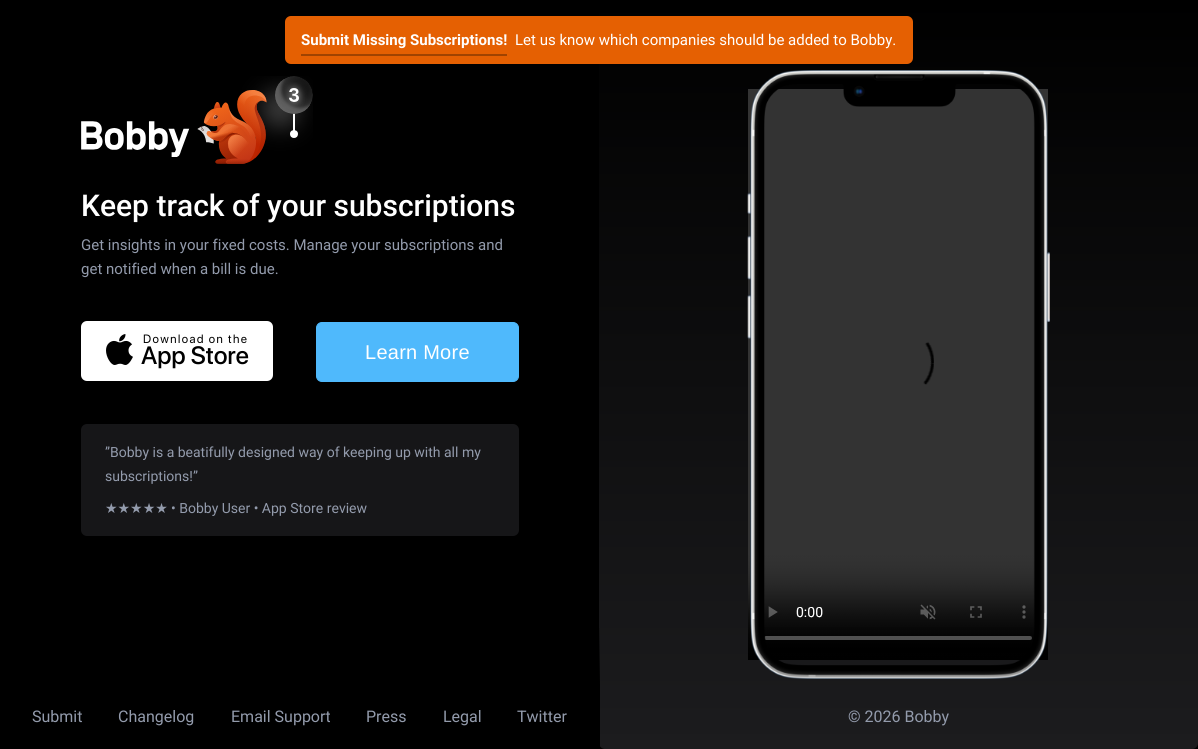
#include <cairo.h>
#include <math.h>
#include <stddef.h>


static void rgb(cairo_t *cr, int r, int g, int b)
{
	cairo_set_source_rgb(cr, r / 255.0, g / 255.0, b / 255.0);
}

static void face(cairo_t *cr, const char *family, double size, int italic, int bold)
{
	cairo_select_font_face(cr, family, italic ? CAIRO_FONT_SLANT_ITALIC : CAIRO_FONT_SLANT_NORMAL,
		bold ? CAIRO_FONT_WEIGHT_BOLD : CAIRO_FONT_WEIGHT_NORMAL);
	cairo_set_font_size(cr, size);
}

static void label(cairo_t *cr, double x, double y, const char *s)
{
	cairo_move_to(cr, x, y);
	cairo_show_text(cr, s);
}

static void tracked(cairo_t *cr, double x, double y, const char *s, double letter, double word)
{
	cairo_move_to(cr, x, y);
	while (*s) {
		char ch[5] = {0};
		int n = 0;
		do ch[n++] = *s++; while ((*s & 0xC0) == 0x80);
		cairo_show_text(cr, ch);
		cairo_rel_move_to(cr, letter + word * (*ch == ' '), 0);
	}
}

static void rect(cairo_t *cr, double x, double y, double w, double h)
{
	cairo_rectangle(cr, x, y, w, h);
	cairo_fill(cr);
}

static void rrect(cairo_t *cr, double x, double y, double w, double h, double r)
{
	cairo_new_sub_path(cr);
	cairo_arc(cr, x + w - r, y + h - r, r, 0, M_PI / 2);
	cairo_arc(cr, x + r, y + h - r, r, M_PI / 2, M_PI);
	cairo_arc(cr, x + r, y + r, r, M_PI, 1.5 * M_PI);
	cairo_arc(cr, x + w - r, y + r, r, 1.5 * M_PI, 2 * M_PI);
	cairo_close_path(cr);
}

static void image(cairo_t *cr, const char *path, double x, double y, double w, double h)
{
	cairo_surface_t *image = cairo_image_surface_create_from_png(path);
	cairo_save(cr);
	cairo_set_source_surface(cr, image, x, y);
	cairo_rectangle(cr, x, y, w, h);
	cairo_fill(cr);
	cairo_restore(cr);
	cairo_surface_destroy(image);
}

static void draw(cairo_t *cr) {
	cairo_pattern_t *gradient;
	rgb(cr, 0, 0, 0);
	cairo_paint(cr);
	gradient = cairo_pattern_create_linear(899, 0, 899, 749);
	cairo_pattern_add_color_stop_rgba(gradient, 0, 0, 0, 0, 1);
	cairo_pattern_add_color_stop_rgba(gradient, 1, 0.11, 0.11, 0.118, 1);
	cairo_set_source(cr, gradient);
	cairo_pattern_destroy(gradient);
	rrect(cr, 599, 0, 599, 749, 6);
	cairo_fill(cr);
	rgb(cr, 229, 96, 2);
	rrect(cr, 285, 16, 628, 48, 6);
	cairo_fill(cr);
	face(cr, "Roboto", 15, 0, 1);
	rgb(cr, 255, 255, 255);
	label(cr, 301, 45, "Submit Missing Subscriptions!");
	rgb(cr, 160, 67, 1);
	rect(cr, 301, 54, 206, 2);
	face(cr, "Roboto", 15, 0, 0);
	rgb(cr, 255, 255, 255);
	label(cr, 515, 45, "Let us know which companies should be added to Bobby.");
	image(cr, "image0.png", 81, 76, 232, 88);
	face(cr, "Roboto Medium", 30, 0, 0);
	label(cr, 81, 216, "Keep track of your subscriptions");
	face(cr, "Roboto", 15, 0, 0);
	rgb(cr, 147, 155, 172);
	label(cr, 81, 250, "Get insights in your fixed costs. Manage your subscriptions and");
	label(cr, 81, 274, "get notified when a bill is due.");
	image(cr, "image1.png", 81, 321, 192, 60);
	rgb(cr, 79, 185, 252);
	rrect(cr, 316.5, 322.5, 202, 59, 5.5);
	cairo_fill_preserve(cr);
	cairo_set_line_width(cr, 1);
	cairo_stroke(cr);
	face(cr, "Liberation Sans", 20, 0, 0);
	rgb(cr, 255, 255, 255);
	tracked(cr, 365, 359, "Learn More", 0.25, 0);
	rgb(cr, 22, 22, 24);
	rrect(cr, 81, 424, 438, 112, 6);
	cairo_fill(cr);
	face(cr, "Roboto", 14, 0, 0);
	rgb(cr, 147, 155, 172);
	label(cr, 105, 457, "”Bobby is a beatifully designed way of keeping up with all my");
	label(cr, 105, 481, "subscriptions!”");
	face(cr, "DejaVu Sans", 14, 0, 0);
	label(cr, 105, 513, "★★★★★");
	face(cr, "Roboto", 14, 0, 0);
	label(cr, 171, 513, "• Bobby User • App Store review");
	face(cr, "Roboto", 16, 0, 0);
	label(cr, 32, 722, "Submit");
	label(cr, 118, 722, "Changelog");
	label(cr, 231, 722, "Email Support");
	label(cr, 366, 722, "Press");
	label(cr, 443, 722, "Legal");
	label(cr, 517, 722, "Twitter");
	gradient = cairo_pattern_create_linear(300, 621, 300, 749);
	cairo_pattern_add_color_stop_rgba(gradient, 0, 0, 0, 0, 0);
	cairo_pattern_add_color_stop_rgba(gradient, 0.5, 0, 0, 0, 1);
	cairo_set_source(cr, gradient);
	cairo_pattern_destroy(gradient);
	rect(cr, 599, 628, 1, 118);
	image(cr, "image3.png", 748, 89, 300, 571);
	image(cr, "image2.png", 747, 70, 303, 609);
	rgb(cr, 147, 155, 172);
	label(cr, 848, 722, "© 2026 Bobby");
}

int main(void) {
	cairo_surface_t *surface = cairo_image_surface_create(CAIRO_FORMAT_RGB24, 1198, 749);
	cairo_t *cr = cairo_create(surface);
	cairo_font_options_t *options = cairo_font_options_create();
	cairo_font_options_set_hint_metrics(options, CAIRO_HINT_METRICS_OFF);
	cairo_font_options_set_hint_style(options, CAIRO_HINT_STYLE_NONE);
	cairo_set_font_options(cr, options);
	cairo_set_miter_limit(cr, 4);
	draw(cr);
	cairo_surface_write_to_png(surface, "render.png");
	cairo_font_options_destroy(options);
	cairo_destroy(cr);
	cairo_surface_destroy(surface);
	return 0;
}
